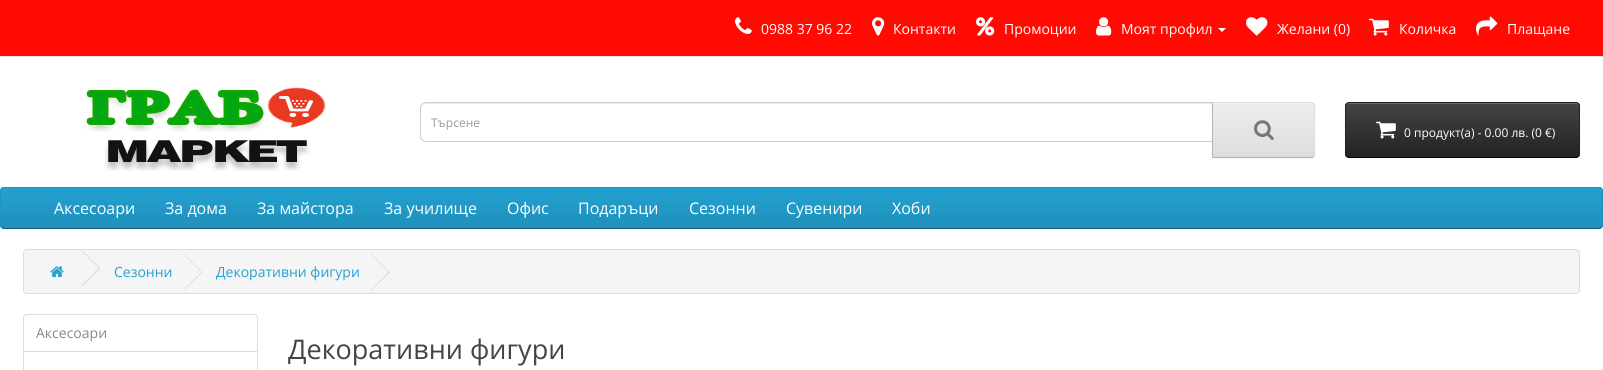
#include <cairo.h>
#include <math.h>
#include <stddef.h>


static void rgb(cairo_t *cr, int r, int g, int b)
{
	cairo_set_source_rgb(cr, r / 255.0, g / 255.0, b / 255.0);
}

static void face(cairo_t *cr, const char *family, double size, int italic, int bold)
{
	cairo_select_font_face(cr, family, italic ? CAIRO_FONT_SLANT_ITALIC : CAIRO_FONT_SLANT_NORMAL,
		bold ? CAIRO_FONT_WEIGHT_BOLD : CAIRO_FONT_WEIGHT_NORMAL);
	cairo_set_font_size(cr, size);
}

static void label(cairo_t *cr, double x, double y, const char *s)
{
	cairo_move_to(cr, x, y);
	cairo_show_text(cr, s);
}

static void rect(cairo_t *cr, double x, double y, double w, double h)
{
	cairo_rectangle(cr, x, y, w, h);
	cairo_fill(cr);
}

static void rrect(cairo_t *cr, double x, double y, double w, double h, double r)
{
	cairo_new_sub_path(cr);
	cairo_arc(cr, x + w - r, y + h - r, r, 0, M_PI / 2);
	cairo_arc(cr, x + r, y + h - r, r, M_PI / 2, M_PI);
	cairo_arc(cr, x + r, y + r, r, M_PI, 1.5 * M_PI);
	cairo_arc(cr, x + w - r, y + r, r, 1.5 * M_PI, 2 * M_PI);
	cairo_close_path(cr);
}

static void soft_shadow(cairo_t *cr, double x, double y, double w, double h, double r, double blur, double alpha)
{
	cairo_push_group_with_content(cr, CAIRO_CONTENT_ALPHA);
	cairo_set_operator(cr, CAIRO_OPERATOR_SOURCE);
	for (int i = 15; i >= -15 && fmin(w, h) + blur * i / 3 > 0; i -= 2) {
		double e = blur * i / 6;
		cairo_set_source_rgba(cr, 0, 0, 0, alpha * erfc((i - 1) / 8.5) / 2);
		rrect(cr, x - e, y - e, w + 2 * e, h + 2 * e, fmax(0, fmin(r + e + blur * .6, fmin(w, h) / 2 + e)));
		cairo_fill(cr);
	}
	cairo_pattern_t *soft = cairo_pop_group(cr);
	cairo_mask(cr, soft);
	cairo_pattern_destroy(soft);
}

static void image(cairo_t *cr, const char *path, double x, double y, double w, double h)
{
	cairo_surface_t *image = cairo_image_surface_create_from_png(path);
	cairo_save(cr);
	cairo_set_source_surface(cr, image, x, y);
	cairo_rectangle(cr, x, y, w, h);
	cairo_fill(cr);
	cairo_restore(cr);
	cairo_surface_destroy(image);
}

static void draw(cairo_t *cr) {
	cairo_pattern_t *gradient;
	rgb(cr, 255, 255, 255);
	cairo_paint(cr);
	rgb(cr, 255, 11, 3);
	rect(cr, 0, 0, 1603, 56);
	rgb(cr, 226, 226, 226);
	rect(cr, 0, 56, 1603, 1);
	image(cr, "image0.png", 735, 17, 17, 17);
	face(cr, "Open Sans", 14, 0, 0);
	rgb(cr, 255, 255, 255);
	label(cr, 761, 34, "0988 37 96 22");
	image(cr, "image1.png", 872, 17, 13, 19);
	label(cr, 893, 34, "Контакти");
	image(cr, "image2.png", 976, 17, 19, 19);
	label(cr, 1004, 34, "Промоции");
	image(cr, "image3.png", 1096, 17, 16, 19);
	label(cr, 1121, 34, "Моят профил");
	cairo_new_path(cr);
	cairo_move_to(cr, 1218, 28);
	cairo_line_to(cr, 1226, 28);
	cairo_line_to(cr, 1222, 32);
	cairo_close_path(cr);
	cairo_fill(cr);
	image(cr, "image4.png", 1246, 17, 22, 19);
	label(cr, 1277, 34, "Желани (0)");
	image(cr, "image5.png", 1369, 18, 20, 18);
	label(cr, 1399, 34, "Количка");
	image(cr, "image6.png", 1476, 16, 22, 20);
	label(cr, 1507, 34, "Плащане");
	image(cr, "image7.png", 86, 87, 240, 84);
	rgb(cr, 236, 236, 236);
	cairo_new_path(cr);
	cairo_move_to(cr, 426, 104);
	cairo_line_to(cr, 1212, 104);
	cairo_line_to(cr, 1212, 103);
	cairo_line_to(cr, 426, 103);
	cairo_curve_to(cr, 423, 103, 421, 105, 421, 108);
	cairo_line_to(cr, 421, 109);
	cairo_curve_to(cr, 421, 106, 423, 104, 426, 104);
	cairo_close_path(cr);
	cairo_fill(cr);
	cairo_new_path(cr);
	cairo_move_to(cr, 426, 102.5);
	cairo_line_to(cr, 1212.5, 102.5);
	cairo_line_to(cr, 1212.5, 141.5);
	cairo_line_to(cr, 426, 141.5);
	cairo_curve_to(cr, 423, 141.5, 420.5, 139, 420.5, 136);
	cairo_line_to(cr, 420.5, 108);
	cairo_curve_to(cr, 420.5, 105, 423, 102.5, 426, 102.5);
	cairo_close_path(cr);
	rgb(cr, 204, 204, 204);
	cairo_set_line_width(cr, 1);
	cairo_stroke(cr);
	face(cr, "Open Sans", 12, 0, 0);
	rgb(cr, 153, 153, 153);
	label(cr, 431, 127, "Търсене");
	rgb(cr, 0, 0, 0);
	soft_shadow(cr, 1212, 103, 103, 56, 4, 1, 0.05);
	rgb(cr, 231, 231, 231);
	cairo_new_path(cr);
	cairo_move_to(cr, 1212, 102);
	cairo_line_to(cr, 1311, 102);
	cairo_curve_to(cr, 1313, 102, 1315, 104, 1315, 106);
	cairo_line_to(cr, 1315, 154);
	cairo_curve_to(cr, 1315, 156, 1313, 158, 1311, 158);
	cairo_line_to(cr, 1212, 158);
	cairo_close_path(cr);
	cairo_fill(cr);
	cairo_save(cr);
	cairo_new_path(cr);
	cairo_move_to(cr, 1212, 102);
	cairo_line_to(cr, 1311, 102);
	cairo_curve_to(cr, 1313, 102, 1315, 104, 1315, 106);
	cairo_line_to(cr, 1315, 154);
	cairo_curve_to(cr, 1315, 156, 1313, 158, 1311, 158);
	cairo_line_to(cr, 1212, 158);
	cairo_close_path(cr);
	cairo_clip(cr);
	gradient = cairo_pattern_create_linear(1264, 103, 1264, 157);
	cairo_pattern_add_color_stop_rgba(gradient, 0, 0.933, 0.933, 0.933, 1);
	cairo_pattern_add_color_stop_rgba(gradient, 1, 0.867, 0.867, 0.867, 1);
	cairo_set_source(cr, gradient);
	cairo_pattern_destroy(gradient);
	rect(cr, 1213, 103, 102, 54);
	cairo_restore(cr);
	rgb(cr, 241, 241, 241);
	cairo_new_path(cr);
	cairo_move_to(cr, 1213, 104);
	cairo_line_to(cr, 1311, 104);
	cairo_curve_to(cr, 1313, 104, 1314, 105, 1314, 107);
	cairo_line_to(cr, 1314, 106);
	cairo_curve_to(cr, 1314, 104, 1313, 103, 1311, 103);
	cairo_line_to(cr, 1213, 103);
	cairo_close_path(cr);
	cairo_fill(cr);
	rgb(cr, 221, 221, 221);
	cairo_new_path(cr);
	cairo_move_to(cr, 1212, 102);
	cairo_line_to(cr, 1213, 103);
	cairo_line_to(cr, 1311, 103);
	cairo_line_to(cr, 1313, 104);
	cairo_line_to(cr, 1314, 103);
	cairo_line_to(cr, 1311, 102);
	cairo_close_path(cr);
	cairo_fill(cr);
	cairo_new_path(cr);
	cairo_move_to(cr, 1315, 154);
	cairo_line_to(cr, 1315, 105);
	cairo_line_to(cr, 1314, 103);
	cairo_line_to(cr, 1313, 104);
	cairo_line_to(cr, 1314, 106);
	cairo_curve_to(cr, 1314, 112, 1315, 154, 1313, 156);
	cairo_line_to(cr, 1314, 157);
	cairo_close_path(cr);
	cairo_fill(cr);
	rgb(cr, 179, 179, 179);
	cairo_new_path(cr);
	cairo_move_to(cr, 1311, 158);
	cairo_line_to(cr, 1314, 157);
	cairo_line_to(cr, 1313, 156);
	cairo_line_to(cr, 1311, 157);
	cairo_line_to(cr, 1213, 157);
	cairo_line_to(cr, 1212, 158);
	cairo_close_path(cr);
	cairo_fill(cr);
	rgb(cr, 183, 183, 183);
	cairo_new_path(cr);
	cairo_move_to(cr, 1212, 102);
	cairo_line_to(cr, 1212, 158);
	cairo_line_to(cr, 1213, 157);
	cairo_line_to(cr, 1213, 103);
	cairo_close_path(cr);
	cairo_fill(cr);
	image(cr, "image8.png", 1254, 120, 20, 20);
	rgb(cr, 0, 0, 0);
	soft_shadow(cr, 1345, 103, 235, 56, 4, 1, 0.05);
	cairo_save(cr);
	rrect(cr, 1345, 102, 235, 56, 4);
	cairo_clip(cr);
	gradient = cairo_pattern_create_linear(1463, 103, 1463, 157);
	cairo_pattern_add_color_stop_rgba(gradient, 0, 0.267, 0.267, 0.267, 1);
	cairo_pattern_add_color_stop_rgba(gradient, 1, 0.133, 0.133, 0.133, 1);
	cairo_set_source(cr, gradient);
	cairo_pattern_destroy(gradient);
	rect(cr, 1345, 103, 235, 54);
	cairo_restore(cr);
	rgb(cr, 105, 105, 105);
	cairo_new_path(cr);
	cairo_move_to(cr, 1349, 104);
	cairo_line_to(cr, 1576, 104);
	cairo_curve_to(cr, 1578, 104, 1579, 105, 1579, 107);
	cairo_curve_to(cr, 1579, 105, 1578, 103, 1576, 103);
	cairo_line_to(cr, 1349, 103);
	cairo_curve_to(cr, 1347, 103, 1346, 105, 1346, 107);
	cairo_curve_to(cr, 1346, 105, 1347, 104, 1349, 104);
	cairo_close_path(cr);
	cairo_fill(cr);
	cairo_new_path(cr);
	cairo_move_to(cr, 1578.5, 156.5);
	cairo_curve_to(cr, 1578, 157, 1577, 157.5, 1576, 157.5);
	cairo_line_to(cr, 1349, 157.5);
	cairo_curve_to(cr, 1348, 157.5, 1347, 157, 1346.5, 156.5);
	rgb(cr, 0, 0, 0);
	cairo_stroke(cr);
	cairo_new_path(cr);
	cairo_move_to(cr, 1346.5, 156.5);
	cairo_curve_to(cr, 1346, 156, 1345.5, 155, 1345.5, 154);
	cairo_line_to(cr, 1345.5, 106);
	cairo_curve_to(cr, 1345.5, 105, 1346, 104, 1346.5, 103.5);
	cairo_curve_to(cr, 1347, 103, 1348, 102.5, 1349, 102.5);
	cairo_line_to(cr, 1576, 102.5);
	cairo_curve_to(cr, 1577, 102.5, 1578, 103, 1578.5, 103.5);
	cairo_curve_to(cr, 1579, 104, 1579.5, 105, 1579.5, 106);
	cairo_line_to(cr, 1579.5, 154);
	cairo_curve_to(cr, 1579.5, 155, 1579, 156, 1578.5, 156.5);
	rgb(cr, 34, 34, 34);
	cairo_stroke(cr);
	image(cr, "image9.png", 1376, 121, 20, 18);
	rgb(cr, 255, 255, 255);
	label(cr, 1404, 137, "0 продукт(а) - 0.00 лв. (0 €)");
	rgb(cr, 34, 154, 200);
	rrect(cr, 0, 187, 1603, 42, 4);
	cairo_fill(cr);
	cairo_save(cr);
	rrect(cr, 0, 187, 1603, 42, 4);
	cairo_clip(cr);
	gradient = cairo_pattern_create_linear(802, 188, 802, 228);
	cairo_pattern_add_color_stop_rgba(gradient, 0, 0.137, 0.631, 0.82, 1);
	cairo_pattern_add_color_stop_rgba(gradient, 1, 0.122, 0.565, 0.733, 1);
	cairo_set_source(cr, gradient);
	cairo_pattern_destroy(gradient);
	rect(cr, 0, 188, 1603, 40);
	cairo_restore(cr);
	cairo_new_path(cr);
	cairo_move_to(cr, 1601.5, 227.5);
	cairo_line_to(cr, 1599, 228.5);
	cairo_line_to(cr, 4, 228.5);
	cairo_line_to(cr, 1.5, 227.5);
	rgb(cr, 20, 94, 122);
	cairo_stroke(cr);
	cairo_new_path(cr);
	cairo_move_to(cr, 1.5, 227.5);
	cairo_line_to(cr, 0.5, 225.5);
	cairo_curve_to(cr, 0, 223, 0, 191, 1, 189.5);
	cairo_curve_to(cr, 1.5, 188, 2.5, 187.5, 4, 187.5);
	cairo_line_to(cr, 1599, 187.5);
	cairo_curve_to(cr, 1600.5, 187.5, 1601.5, 188, 1602, 189.5);
	cairo_curve_to(cr, 1603, 191, 1603, 223, 1602.5, 225.5);
	cairo_line_to(cr, 1601.5, 227.5);
	rgb(cr, 31, 144, 187);
	cairo_stroke(cr);
	face(cr, "Open Sans", 16, 0, 0);
	rgb(cr, 255, 255, 255);
	label(cr, 54, 214, "Аксесоари");
	label(cr, 165, 214, "За дома");
	label(cr, 257, 214, "За майстора");
	label(cr, 384, 214, "За училище");
	label(cr, 507, 214, "Офис");
	label(cr, 578, 214, "Подаръци");
	label(cr, 689, 214, "Сезонни");
	label(cr, 786, 214, "Сувенири");
	label(cr, 892, 214, "Хоби");
	rgb(cr, 245, 245, 245);
	rrect(cr, 23.5, 249.5, 1556, 44, 3.5);
	cairo_fill_preserve(cr);
	rgb(cr, 221, 221, 221);
	cairo_stroke(cr);
	image(cr, "image10.png", 50, 266, 14, 11);
	cairo_new_path(cr);
	cairo_move_to(cr, 81, 250.5);
	cairo_line_to(cr, 82, 250);
	cairo_line_to(cr, 100.5, 268.5);
	cairo_line_to(cr, 99.5, 269);
	cairo_close_path(cr);
	cairo_fill(cr);
	cairo_new_path(cr);
	cairo_move_to(cr, 81, 286);
	cairo_line_to(cr, 99.5, 267.5);
	cairo_line_to(cr, 100.5, 268.5);
	cairo_line_to(cr, 82, 286.5);
	cairo_close_path(cr);
	cairo_fill(cr);
	face(cr, "Open Sans", 14, 0, 0);
	rgb(cr, 35, 161, 209);
	label(cr, 114, 277, "Сезонни");
	rgb(cr, 221, 221, 221);
	cairo_new_path(cr);
	cairo_move_to(cr, 183.5, 254.5);
	cairo_line_to(cr, 184, 254);
	cairo_line_to(cr, 202.5, 272.5);
	cairo_line_to(cr, 202, 273);
	cairo_close_path(cr);
	cairo_fill(cr);
	cairo_new_path(cr);
	cairo_move_to(cr, 183.5, 290);
	cairo_line_to(cr, 202, 271.5);
	cairo_line_to(cr, 202.5, 272.5);
	cairo_line_to(cr, 184, 290.5);
	cairo_close_path(cr);
	cairo_fill(cr);
	rgb(cr, 35, 161, 209);
	label(cr, 216, 277, "Декоративни фигури");
	rgb(cr, 221, 221, 221);
	cairo_new_path(cr);
	cairo_move_to(cr, 371, 254.5);
	cairo_line_to(cr, 371.5, 254);
	cairo_line_to(cr, 390, 272.5);
	cairo_line_to(cr, 389, 273);
	cairo_close_path(cr);
	cairo_fill(cr);
	cairo_new_path(cr);
	cairo_move_to(cr, 371, 290);
	cairo_line_to(cr, 389, 271.5);
	cairo_line_to(cr, 390, 272.5);
	cairo_line_to(cr, 371.5, 290.5);
	cairo_close_path(cr);
	cairo_fill(cr);
	cairo_new_path(cr);
	cairo_move_to(cr, 27, 314.5);
	cairo_line_to(cr, 254, 314.5);
	cairo_curve_to(cr, 256, 314.5, 257.5, 316, 257.5, 318);
	cairo_line_to(cr, 257.5, 351.5);
	cairo_line_to(cr, 23.5, 351.5);
	cairo_line_to(cr, 23.5, 318);
	cairo_curve_to(cr, 23.5, 316, 25, 314.5, 27, 314.5);
	cairo_close_path(cr);
	cairo_stroke(cr);
	rgb(cr, 136, 136, 136);
	label(cr, 36, 338, "Аксесоари");
	cairo_rectangle(cr, 23.5, 351.5, 234, 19);
	rgb(cr, 221, 221, 221);
	cairo_stroke(cr);
	face(cr, "Open Sans", 27, 0, 0);
	rgb(cr, 68, 68, 68);
	label(cr, 288, 359, "Декоративни фигури");
}

int main(void) {
	cairo_surface_t *surface = cairo_image_surface_create(CAIRO_FORMAT_RGB24, 1603, 370);
	cairo_t *cr = cairo_create(surface);
	cairo_font_options_t *options = cairo_font_options_create();
	cairo_font_options_set_hint_metrics(options, CAIRO_HINT_METRICS_OFF);
	cairo_font_options_set_hint_style(options, CAIRO_HINT_STYLE_NONE);
	cairo_set_font_options(cr, options);
	cairo_set_miter_limit(cr, 4);
	draw(cr);
	cairo_surface_write_to_png(surface, "render.png");
	cairo_font_options_destroy(options);
	cairo_destroy(cr);
	cairo_surface_destroy(surface);
	return 0;
}
